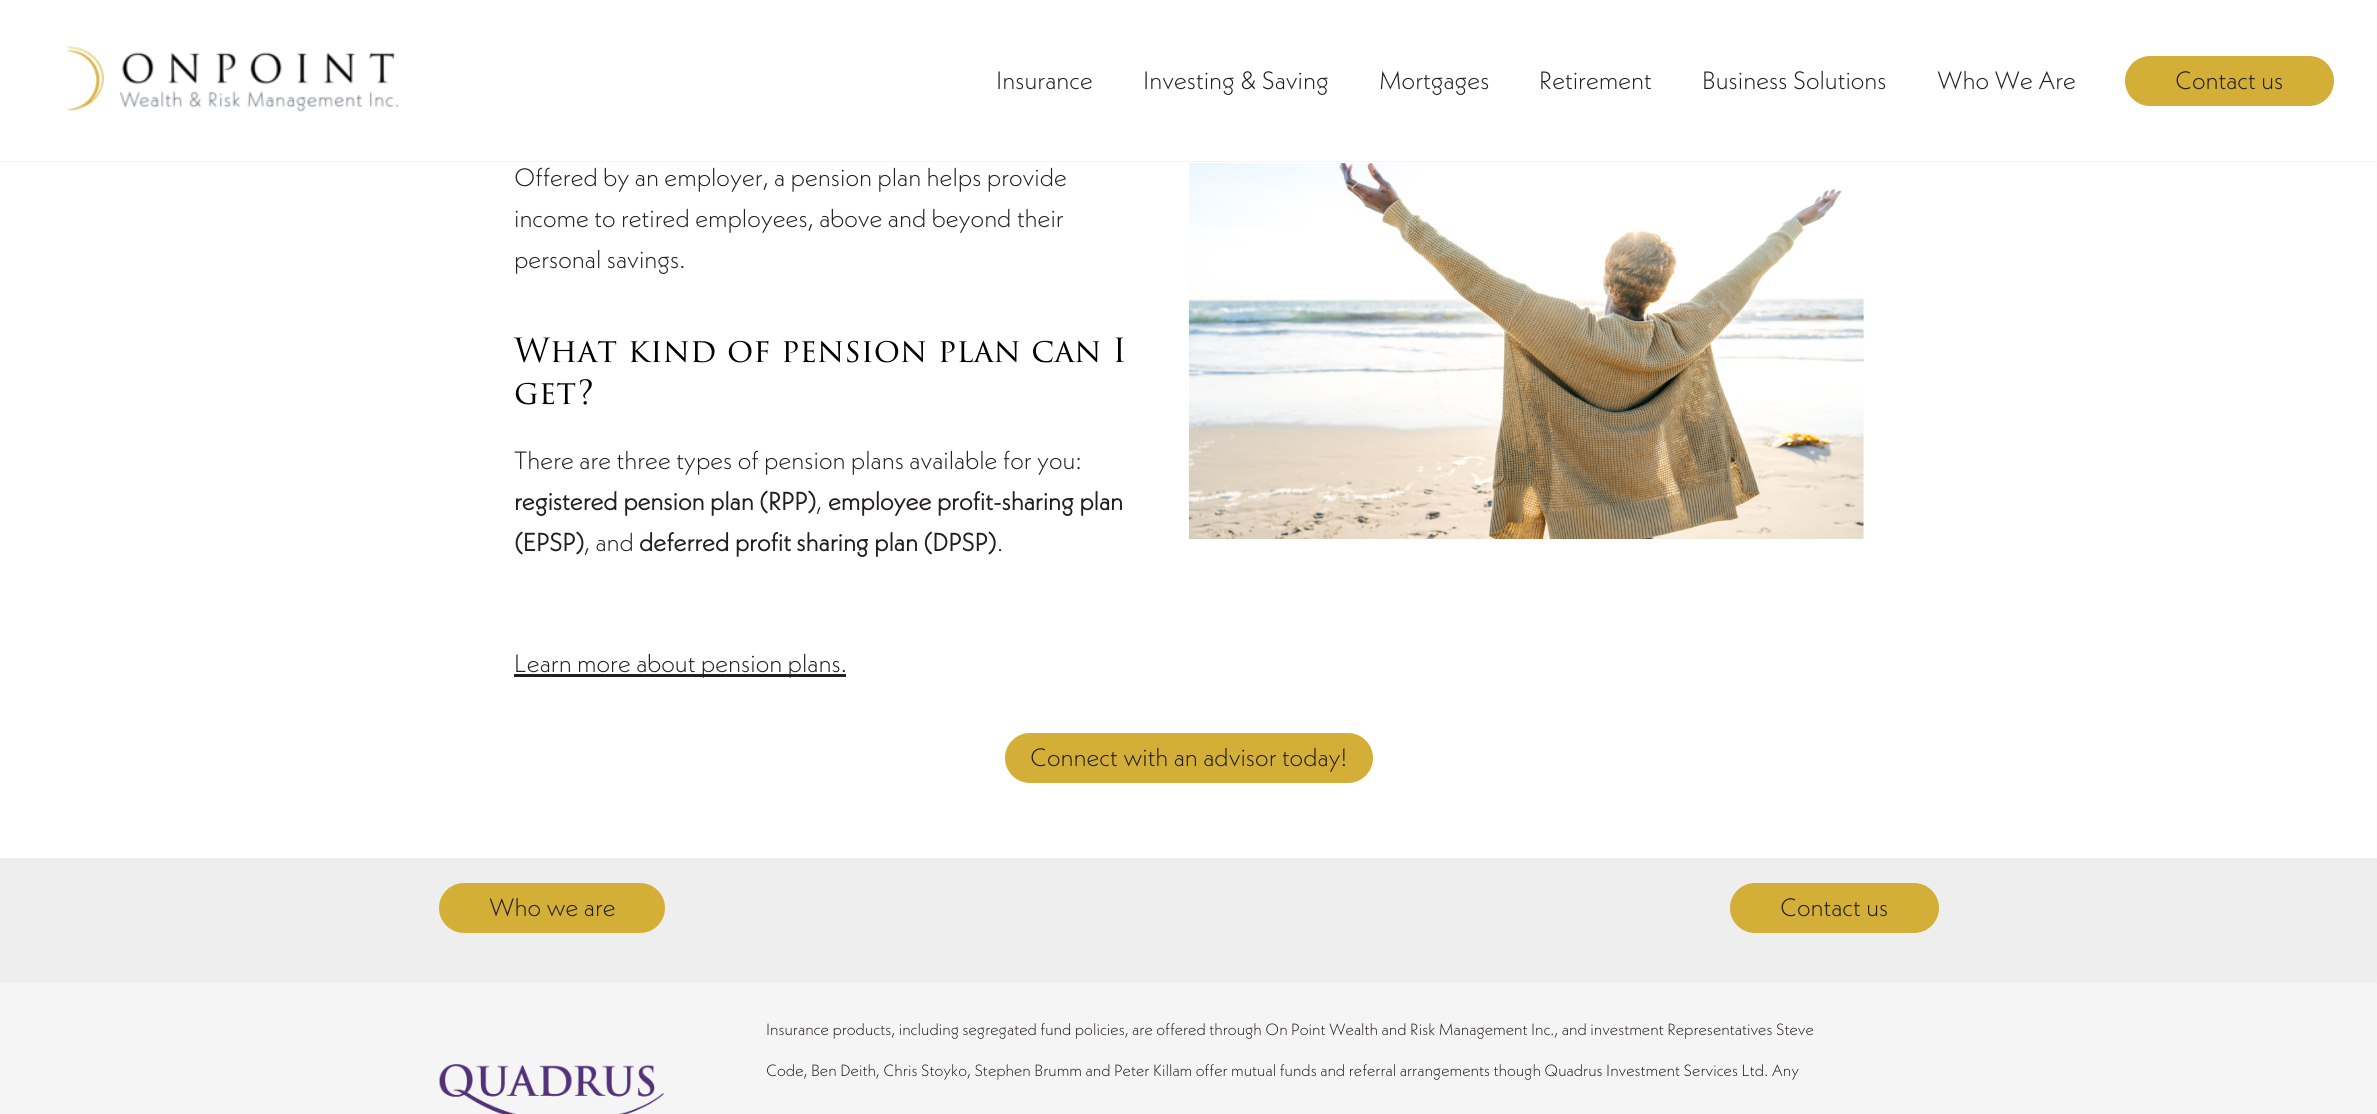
#include <cairo.h>
#include <math.h>
#include <stddef.h>


static void rgb(cairo_t *cr, int r, int g, int b)
{
	cairo_set_source_rgb(cr, r / 255.0, g / 255.0, b / 255.0);
}

static void face(cairo_t *cr, const char *family, double size, int italic, int bold)
{
	cairo_select_font_face(cr, family, italic ? CAIRO_FONT_SLANT_ITALIC : CAIRO_FONT_SLANT_NORMAL,
		bold ? CAIRO_FONT_WEIGHT_BOLD : CAIRO_FONT_WEIGHT_NORMAL);
	cairo_set_font_size(cr, size);
}

static void label(cairo_t *cr, double x, double y, const char *s)
{
	cairo_move_to(cr, x, y);
	cairo_show_text(cr, s);
}

static void rect(cairo_t *cr, double x, double y, double w, double h)
{
	cairo_rectangle(cr, x, y, w, h);
	cairo_fill(cr);
}

static void rrect(cairo_t *cr, double x, double y, double w, double h, double r)
{
	cairo_new_sub_path(cr);
	cairo_arc(cr, x + w - r, y + h - r, r, 0, M_PI / 2);
	cairo_arc(cr, x + r, y + h - r, r, M_PI / 2, M_PI);
	cairo_arc(cr, x + r, y + r, r, M_PI, 1.5 * M_PI);
	cairo_arc(cr, x + w - r, y + r, r, 1.5 * M_PI, 2 * M_PI);
	cairo_close_path(cr);
}

static void image(cairo_t *cr, const char *path, double x, double y, double w, double h)
{
	cairo_surface_t *image = cairo_image_surface_create_from_png(path);
	cairo_save(cr);
	cairo_set_source_surface(cr, image, x, y);
	cairo_rectangle(cr, x, y, w, h);
	cairo_fill(cr);
	cairo_restore(cr);
	cairo_surface_destroy(image);
}

static void draw(cairo_t *cr) {
	rgb(cr, 255, 255, 255);
	cairo_paint(cr);
	rgb(cr, 242, 245, 247);
	rect(cr, 0, 161, 2377, 1);
	image(cr, "image0.png", 67, 46, 332, 66);
	face(cr, "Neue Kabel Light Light", 25, 0, 0);
	rgb(cr, 35, 31, 32);
	label(cr, 996, 89, "Insurance");
	label(cr, 1143, 89, "Investing & Saving");
	label(cr, 1379, 89, "Mortgages");
	label(cr, 1539, 89, "Retirement");
	label(cr, 1702, 89, "Business Solutions");
	label(cr, 1937, 89, "Who We Are");
	rgb(cr, 212, 175, 55);
	rrect(cr, 2125, 56, 209, 50, 25);
	cairo_fill(cr);
	rgb(cr, 35, 31, 32);
	label(cr, 2175, 89, "Contact us");
	label(cr, 514, 186, "Offered by an employer, a pension plan helps provide");
	label(cr, 514, 227, "income to retired employees, above and beyond their");
	label(cr, 514, 268, "personal savings.");
	face(cr, "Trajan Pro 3", 32.5, 0, 0);
	rgb(cr, 0, 0, 0);
	label(cr, 514, 362, "What kind of pension plan can I");
	label(cr, 514, 404, "get?");
	face(cr, "Neue Kabel Light Light", 25, 0, 0);
	rgb(cr, 35, 31, 32);
	label(cr, 514, 469, "There are three types of pension plans available for you:");
	face(cr, "Neue Kabel Light", 25, 0, 1);
	label(cr, 514, 510, "registered pension plan (RPP)");
	face(cr, "Neue Kabel Light Light", 25, 0, 0);
	label(cr, 816, 510, ",");
	face(cr, "Neue Kabel Light", 25, 0, 1);
	label(cr, 828, 510, "employee profit-sharing plan");
	label(cr, 514, 551, "(EPSP)");
	face(cr, "Neue Kabel Light Light", 25, 0, 0);
	label(cr, 584, 551, ", and");
	face(cr, "Neue Kabel Light", 25, 0, 1);
	label(cr, 639, 551, "deferred profit sharing plan (DPSP)");
	face(cr, "Neue Kabel Light Light", 25, 0, 0);
	label(cr, 997, 551, ".");
	image(cr, "image1.png", 1188, 163, 676, 376);
	rect(cr, 514, 674, 332, 3);
	label(cr, 514, 672, "Learn more about pension plans.");
	rgb(cr, 212, 175, 55);
	rrect(cr, 1005, 733, 368, 50, 25);
	cairo_fill(cr);
	rgb(cr, 35, 31, 32);
	label(cr, 1030, 766, "Connect with an advisor today!");
	rgb(cr, 238, 238, 238);
	rect(cr, 0, 858, 2377, 125);
	rgb(cr, 212, 175, 55);
	rrect(cr, 439, 883, 226, 50, 25);
	cairo_fill(cr);
	rgb(cr, 35, 31, 32);
	label(cr, 489, 916, "Who we are");
	rgb(cr, 212, 175, 55);
	rrect(cr, 1730, 883, 209, 50, 25);
	cairo_fill(cr);
	rgb(cr, 35, 31, 32);
	label(cr, 1780, 916, "Contact us");
	rgb(cr, 245, 245, 245);
	rect(cr, 0, 984, 2377, 130);
	rgb(cr, 242, 245, 247);
	rect(cr, 0, 983, 2377, 1);
	face(cr, "Neue Kabel Light Light", 16.25, 0, 0);
	rgb(cr, 35, 31, 32);
	label(cr, 766, 1035, "Insurance products, including segregated fund policies, are offered through On Point Wealth and Risk Management Inc., and investment Representatives Steve");
	label(cr, 766, 1076, "Code, Ben Deith, Chris Stoyko, Stephen Brumm and Peter Killam offer mutual funds and referral arrangements though Quadrus Investment Services Ltd. Any");
	image(cr, "image2.png", 439, 1064, 225, 50);
}

int main(void) {
	cairo_surface_t *surface = cairo_image_surface_create(CAIRO_FORMAT_RGB24, 2377, 1114);
	cairo_t *cr = cairo_create(surface);
	cairo_font_options_t *options = cairo_font_options_create();
	cairo_font_options_set_hint_metrics(options, CAIRO_HINT_METRICS_OFF);
	cairo_font_options_set_hint_style(options, CAIRO_HINT_STYLE_NONE);
	cairo_set_font_options(cr, options);
	cairo_set_miter_limit(cr, 4);
	draw(cr);
	cairo_surface_write_to_png(surface, "render.png");
	cairo_font_options_destroy(options);
	cairo_destroy(cr);
	cairo_surface_destroy(surface);
	return 0;
}
